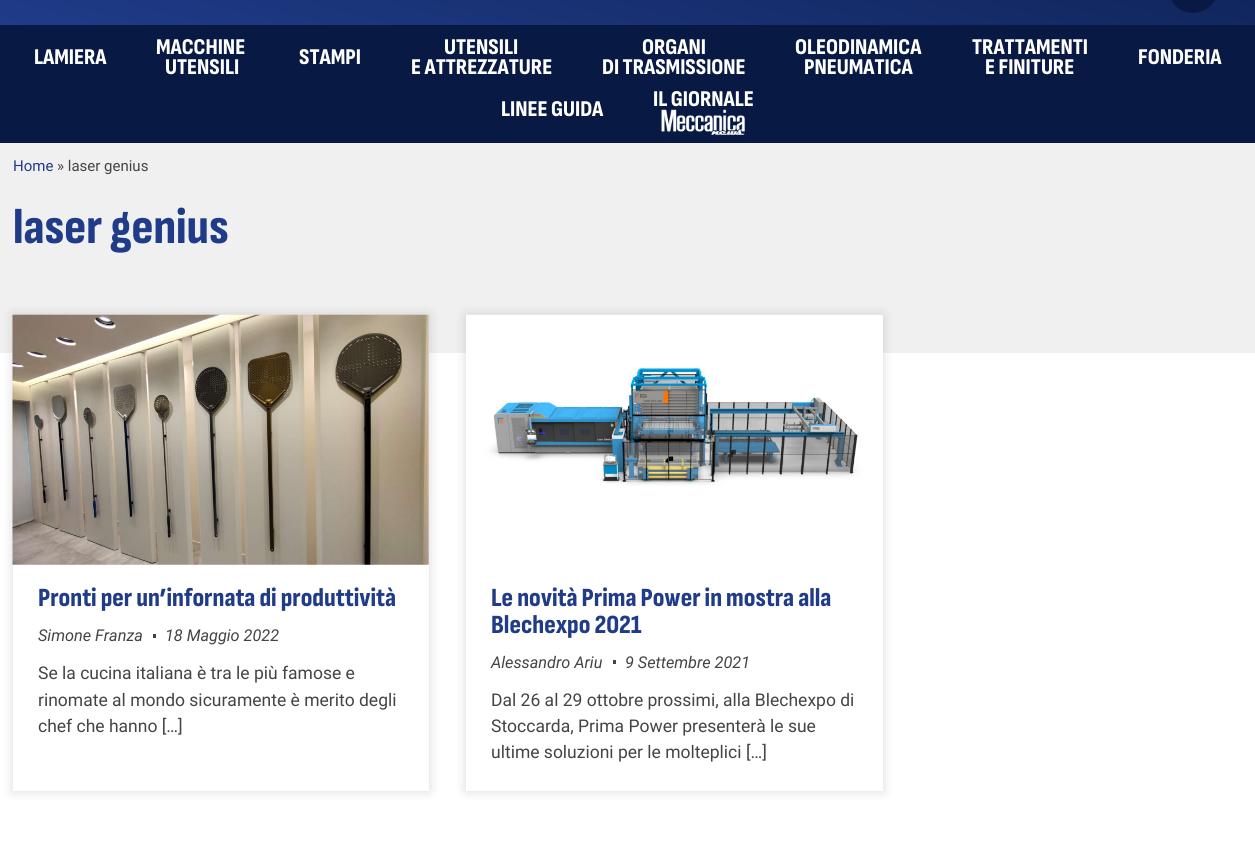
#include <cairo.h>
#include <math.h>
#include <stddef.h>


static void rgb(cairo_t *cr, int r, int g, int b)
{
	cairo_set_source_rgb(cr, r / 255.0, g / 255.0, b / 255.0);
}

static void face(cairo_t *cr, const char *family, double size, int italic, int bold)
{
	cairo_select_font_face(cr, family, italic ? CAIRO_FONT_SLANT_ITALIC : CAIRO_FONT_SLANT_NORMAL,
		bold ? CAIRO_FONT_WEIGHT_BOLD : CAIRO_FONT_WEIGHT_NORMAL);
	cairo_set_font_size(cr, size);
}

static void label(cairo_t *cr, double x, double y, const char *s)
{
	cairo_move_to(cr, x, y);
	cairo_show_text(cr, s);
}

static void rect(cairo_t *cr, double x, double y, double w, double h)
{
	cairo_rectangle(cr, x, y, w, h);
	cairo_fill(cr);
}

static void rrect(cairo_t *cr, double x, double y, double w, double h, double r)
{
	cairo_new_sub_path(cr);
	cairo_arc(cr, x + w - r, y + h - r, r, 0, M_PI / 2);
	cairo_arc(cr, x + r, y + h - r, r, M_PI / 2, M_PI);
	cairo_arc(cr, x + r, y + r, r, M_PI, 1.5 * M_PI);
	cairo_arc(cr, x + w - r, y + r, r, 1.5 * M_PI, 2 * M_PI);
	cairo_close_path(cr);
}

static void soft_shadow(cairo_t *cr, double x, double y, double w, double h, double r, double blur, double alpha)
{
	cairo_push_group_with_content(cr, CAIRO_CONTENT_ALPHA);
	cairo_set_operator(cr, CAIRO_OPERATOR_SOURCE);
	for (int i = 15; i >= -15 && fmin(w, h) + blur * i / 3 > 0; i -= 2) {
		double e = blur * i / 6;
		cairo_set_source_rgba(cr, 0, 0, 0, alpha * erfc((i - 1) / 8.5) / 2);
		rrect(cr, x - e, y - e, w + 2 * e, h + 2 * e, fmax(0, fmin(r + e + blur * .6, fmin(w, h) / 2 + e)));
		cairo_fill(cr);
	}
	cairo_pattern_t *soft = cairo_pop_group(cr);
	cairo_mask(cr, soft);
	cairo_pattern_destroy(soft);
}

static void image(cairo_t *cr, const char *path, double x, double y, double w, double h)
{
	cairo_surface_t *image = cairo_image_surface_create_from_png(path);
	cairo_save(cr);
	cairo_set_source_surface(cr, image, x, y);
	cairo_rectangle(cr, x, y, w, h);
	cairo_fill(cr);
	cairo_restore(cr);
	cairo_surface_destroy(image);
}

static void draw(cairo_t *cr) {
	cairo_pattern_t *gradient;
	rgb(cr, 255, 255, 255);
	cairo_paint(cr);
	gradient = cairo_pattern_create_linear(556, 174, 699, -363);
	cairo_pattern_add_color_stop_rgba(gradient, 0, 0.125, 0.235, 0.537, 1);
	cairo_pattern_add_color_stop_rgba(gradient, 1, 0.031, 0.098, 0.263, 1);
	cairo_set_source(cr, gradient);
	cairo_pattern_destroy(gradient);
	rect(cr, 0, 0, 1255, 25);
	rgb(cr, 8, 25, 67);
	rrect(cr, 1168, -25, 50, 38, 25);
	cairo_fill(cr);
	rect(cr, 0, 25, 1255, 118);
	face(cr, "Sofia Sans Condensed ExtraBold", 22.5, 0, 0);
	rgb(cr, 255, 255, 255);
	label(cr, 34, 64, "LAMIERA");
	label(cr, 156, 54, "MACCHINE");
	label(cr, 165, 74, "UTENSILI");
	label(cr, 299, 64, "STAMPI");
	label(cr, 444, 54, "UTENSILI");
	label(cr, 411, 74, "E ATTREZZATURE");
	label(cr, 642, 54, "ORGANI");
	label(cr, 602, 74, "DI TRASMISSIONE");
	label(cr, 795, 54, "OLEODINAMICA");
	label(cr, 804, 74, "PNEUMATICA");
	label(cr, 972, 54, "TRATTAMENTI");
	label(cr, 985, 74, "E FINITURE");
	label(cr, 1138, 64, "FONDERIA");
	label(cr, 653, 106, "IL GIORNALE");
	image(cr, "image0.png", 661, 109, 84, 26);
	label(cr, 501, 116, "LINEE GUIDA");
	rgb(cr, 240, 240, 240);
	rect(cr, 0, 143, 1255, 210);
	face(cr, "Roboto", 15, 0, 0);
	rgb(cr, 32, 60, 137);
	label(cr, 13, 171, "Home");
	rgb(cr, 68, 68, 68);
	label(cr, 57, 171, "» laser genius");
	face(cr, "Sofia Sans Condensed ExtraBold", 50, 0, 0);
	rgb(cr, 32, 60, 137);
	label(cr, 13, 243, "laser genius");
	rgb(cr, 0, 0, 0);
	soft_shadow(cr, 13, 315, 416, 476, 0, 6, 0.15);
	rgb(cr, 255, 255, 255);
	rect(cr, 13, 315, 416, 476);
	image(cr, "image1.png", 12, 314, 417, 251);
	face(cr, "Sofia Sans Condensed ExtraBold", 26.25, 0, 0);
	rgb(cr, 32, 60, 137);
	label(cr, 38, 606, "Pronti per un’infornata di produttività");
	face(cr, "Roboto", 16.25, 1, 0);
	rgb(cr, 68, 68, 68);
	label(cr, 38, 641, "Simone Franza");
	rect(cr, 153, 634, 3, 4);
	label(cr, 165, 641, "18 Maggio 2022");
	face(cr, "Roboto", 17.5, 0, 0);
	label(cr, 38, 679, "Se la cucina italiana è tra le più famose e");
	label(cr, 38, 706, "rinomate al mondo sicuramente è merito degli");
	label(cr, 38, 732, "chef che hanno […]");
	rgb(cr, 0, 0, 0);
	soft_shadow(cr, 466, 315, 417, 476, 0, 6, 0.15);
	rgb(cr, 255, 255, 255);
	rect(cr, 466, 315, 417, 476);
	image(cr, "image2.png", 466, 314, 416, 172);
	face(cr, "Sofia Sans Condensed ExtraBold", 26.25, 0, 0);
	rgb(cr, 32, 60, 137);
	label(cr, 491, 606, "Le novità Prima Power in mostra alla");
	label(cr, 491, 633, "Blechexpo 2021");
	face(cr, "Roboto", 16.25, 1, 0);
	rgb(cr, 68, 68, 68);
	label(cr, 491, 668, "Alessandro Ariu");
	rect(cr, 613, 660, 3, 4);
	label(cr, 625, 668, "9 Settembre 2021");
	face(cr, "Roboto", 17.5, 0, 0);
	label(cr, 491, 706, "Dal 26 al 29 ottobre prossimi, alla Blechexpo di");
	label(cr, 491, 732, "Stoccarda, Prima Power presenterà le sue");
	label(cr, 491, 758, "ultime soluzioni per le molteplici […]");
}

int main(void) {
	cairo_surface_t *surface = cairo_image_surface_create(CAIRO_FORMAT_RGB24, 1255, 862);
	cairo_t *cr = cairo_create(surface);
	cairo_font_options_t *options = cairo_font_options_create();
	cairo_font_options_set_hint_metrics(options, CAIRO_HINT_METRICS_OFF);
	cairo_font_options_set_hint_style(options, CAIRO_HINT_STYLE_NONE);
	cairo_set_font_options(cr, options);
	cairo_set_miter_limit(cr, 4);
	draw(cr);
	cairo_surface_write_to_png(surface, "render.png");
	cairo_font_options_destroy(options);
	cairo_destroy(cr);
	cairo_surface_destroy(surface);
	return 0;
}
